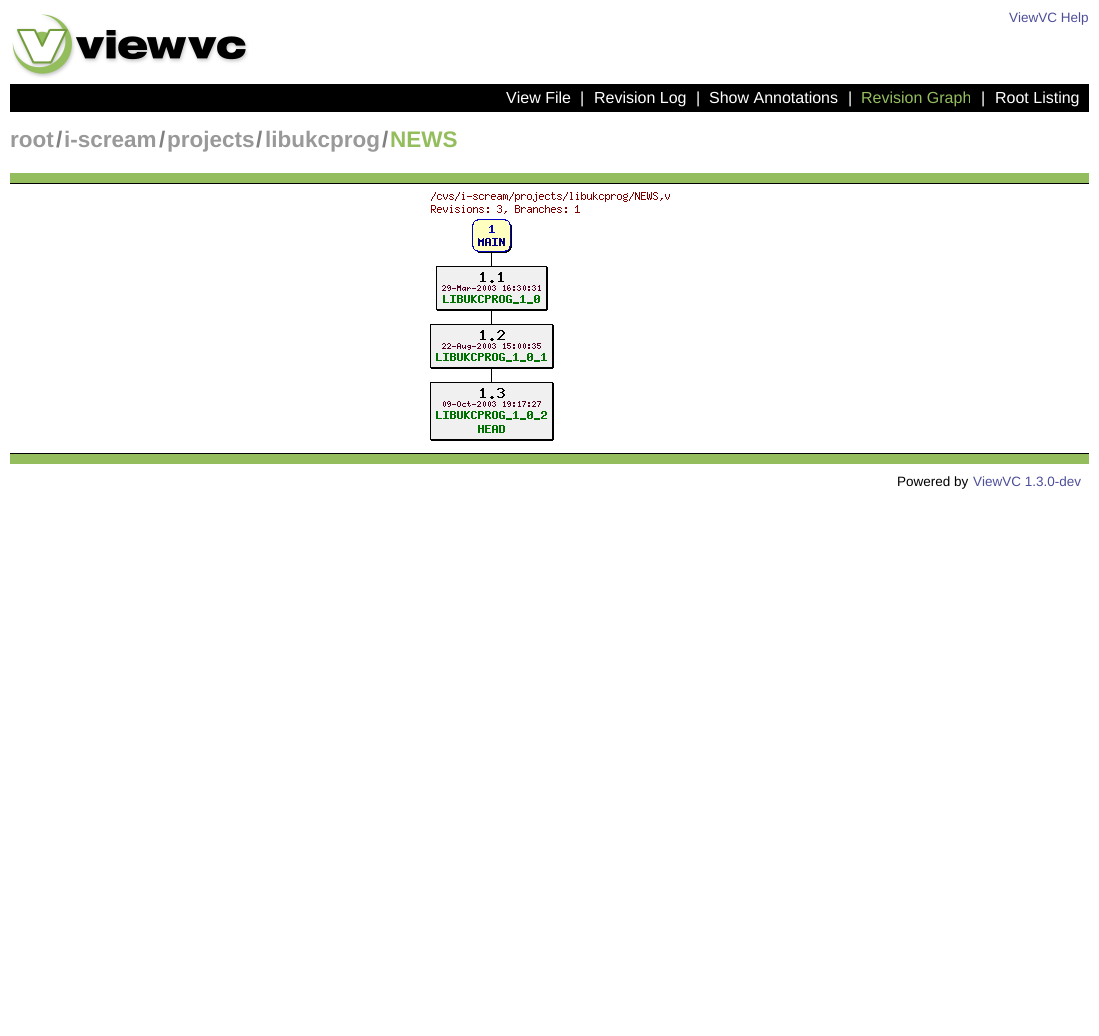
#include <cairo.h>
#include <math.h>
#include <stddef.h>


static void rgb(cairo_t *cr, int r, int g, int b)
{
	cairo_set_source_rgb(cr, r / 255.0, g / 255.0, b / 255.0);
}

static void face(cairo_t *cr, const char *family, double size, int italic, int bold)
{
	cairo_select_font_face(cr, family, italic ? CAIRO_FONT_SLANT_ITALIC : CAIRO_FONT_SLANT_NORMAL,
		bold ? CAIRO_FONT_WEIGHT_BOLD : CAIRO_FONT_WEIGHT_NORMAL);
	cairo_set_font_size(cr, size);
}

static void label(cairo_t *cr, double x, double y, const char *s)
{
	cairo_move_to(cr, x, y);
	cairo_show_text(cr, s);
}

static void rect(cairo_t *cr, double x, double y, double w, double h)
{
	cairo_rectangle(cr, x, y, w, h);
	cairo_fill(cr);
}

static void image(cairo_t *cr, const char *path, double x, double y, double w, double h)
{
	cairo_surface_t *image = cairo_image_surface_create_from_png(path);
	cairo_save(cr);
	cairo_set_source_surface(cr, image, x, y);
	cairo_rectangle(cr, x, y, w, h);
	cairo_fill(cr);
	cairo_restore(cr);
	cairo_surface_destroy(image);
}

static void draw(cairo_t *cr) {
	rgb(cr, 255, 255, 255);
	cairo_paint(cr);
	rgb(cr, 148, 189, 94);
	rect(cr, 10, 173, 1079, 10);
	image(cr, "image0.png", 12, 14, 237, 64);
	face(cr, "Liberation Sans", 13.5, 0, 0);
	rgb(cr, 77, 77, 153);
	label(cr, 1009, 22, "ViewVC Help");
	rgb(cr, 0, 0, 0);
	rect(cr, 10, 84, 1079, 28);
	face(cr, "Liberation Sans", 16, 0, 0);
	rgb(cr, 255, 255, 255);
	label(cr, 506, 103, "View File");
	label(cr, 580, 103, "|");
	label(cr, 594, 103, "Revision Log");
	label(cr, 696, 103, "|");
	label(cr, 709, 103, "Show Annotations");
	label(cr, 848, 103, "|");
	rgb(cr, 148, 189, 94);
	label(cr, 861, 103, "Revision Graph");
	rgb(cr, 255, 255, 255);
	label(cr, 981, 103, "|");
	label(cr, 995, 103, "Root Listing");
	face(cr, "Liberation Sans", 22.5, 0, 1);
	rgb(cr, 153, 153, 153);
	label(cr, 10, 147, "root");
	rgb(cr, 128, 128, 128);
	label(cr, 56, 147, "/");
	rgb(cr, 153, 153, 153);
	label(cr, 64, 147, "i-scream");
	rgb(cr, 128, 128, 128);
	label(cr, 159, 147, "/");
	rgb(cr, 153, 153, 153);
	label(cr, 167, 147, "projects");
	rgb(cr, 128, 128, 128);
	label(cr, 256, 147, "/");
	rgb(cr, 153, 153, 153);
	label(cr, 265, 147, "libukcprog");
	rgb(cr, 128, 128, 128);
	label(cr, 382, 147, "/");
	rgb(cr, 148, 189, 94);
	label(cr, 390, 147, "NEWS");
	rgb(cr, 0, 0, 0);
	rect(cr, 10, 183, 1079, 1);
	rect(cr, 10, 453, 1079, 1);
	image(cr, "image1.png", 430, 192, 240, 249);
	rgb(cr, 148, 189, 94);
	rect(cr, 10, 454, 1079, 10);
	face(cr, "Liberation Sans", 13.5, 0, 0);
	rgb(cr, 0, 0, 0);
	label(cr, 897, 486, "Powered by");
	rgb(cr, 77, 77, 153);
	label(cr, 973, 486, "ViewVC 1.3.0-dev");
}

int main(void) {
	cairo_surface_t *surface = cairo_image_surface_create(CAIRO_FORMAT_RGB24, 1099, 1036);
	cairo_t *cr = cairo_create(surface);
	cairo_font_options_t *options = cairo_font_options_create();
	cairo_font_options_set_hint_metrics(options, CAIRO_HINT_METRICS_OFF);
	cairo_font_options_set_hint_style(options, CAIRO_HINT_STYLE_NONE);
	cairo_set_font_options(cr, options);
	cairo_set_miter_limit(cr, 4);
	draw(cr);
	cairo_surface_write_to_png(surface, "render.png");
	cairo_font_options_destroy(options);
	cairo_destroy(cr);
	cairo_surface_destroy(surface);
	return 0;
}
